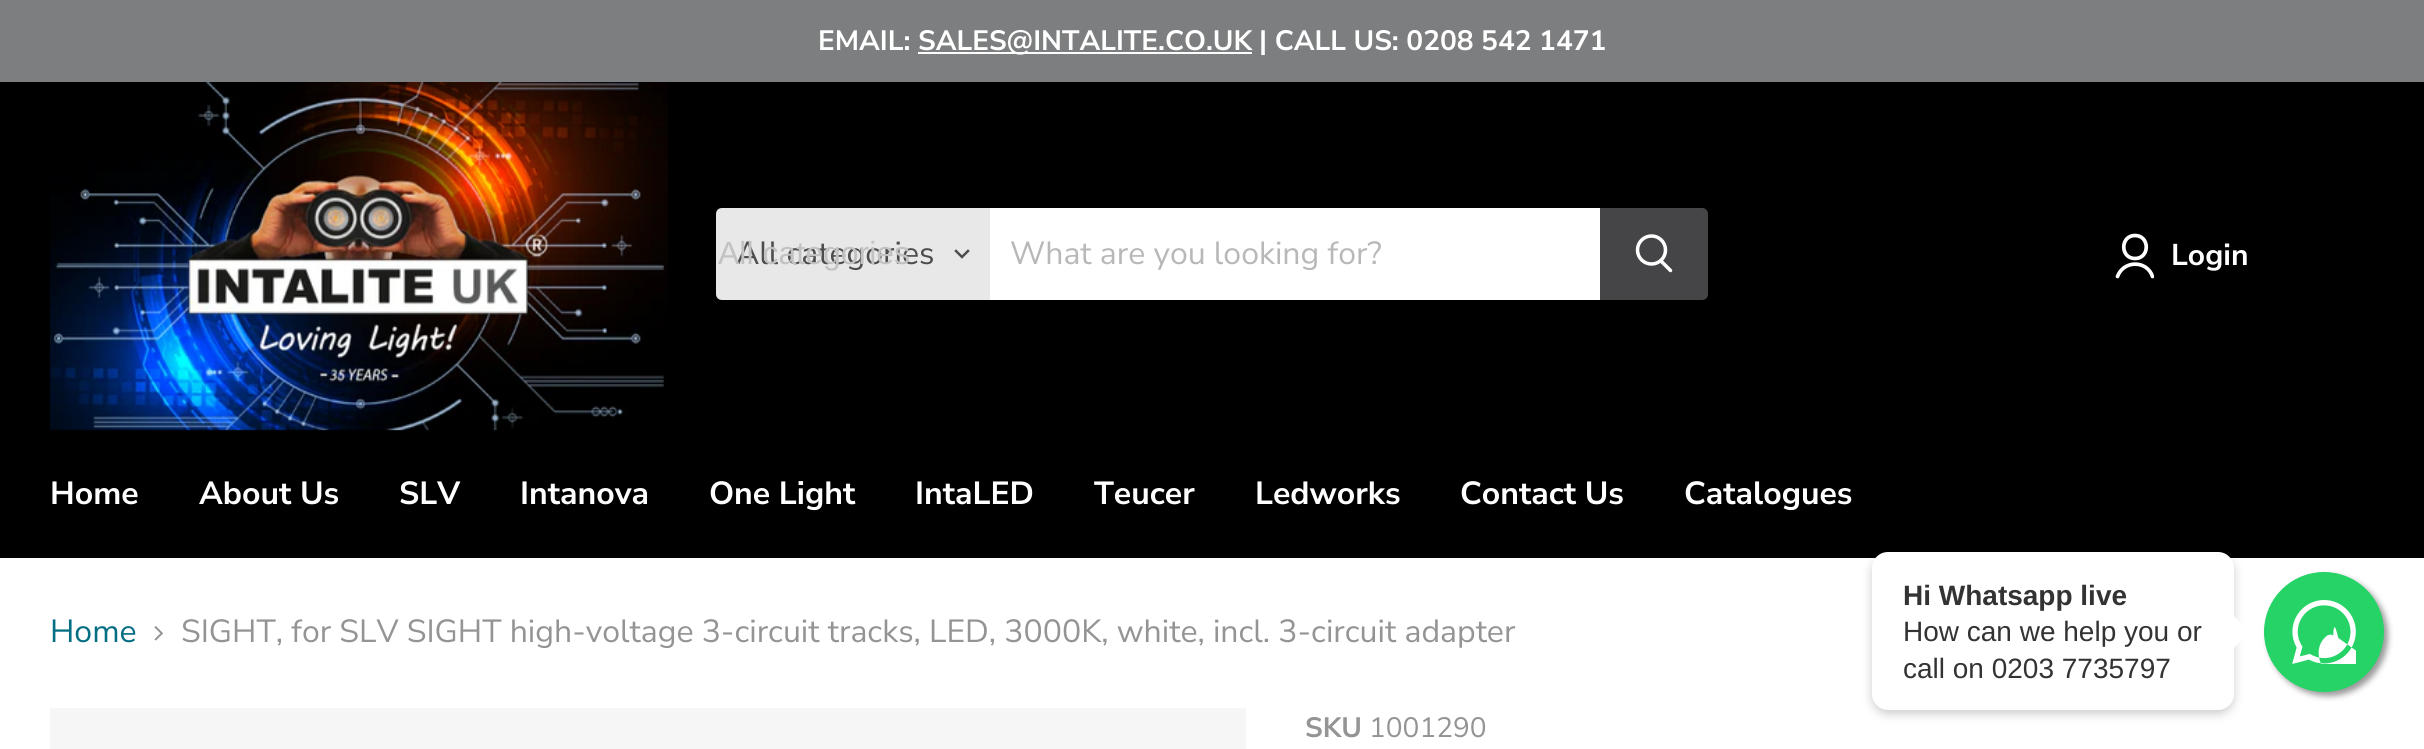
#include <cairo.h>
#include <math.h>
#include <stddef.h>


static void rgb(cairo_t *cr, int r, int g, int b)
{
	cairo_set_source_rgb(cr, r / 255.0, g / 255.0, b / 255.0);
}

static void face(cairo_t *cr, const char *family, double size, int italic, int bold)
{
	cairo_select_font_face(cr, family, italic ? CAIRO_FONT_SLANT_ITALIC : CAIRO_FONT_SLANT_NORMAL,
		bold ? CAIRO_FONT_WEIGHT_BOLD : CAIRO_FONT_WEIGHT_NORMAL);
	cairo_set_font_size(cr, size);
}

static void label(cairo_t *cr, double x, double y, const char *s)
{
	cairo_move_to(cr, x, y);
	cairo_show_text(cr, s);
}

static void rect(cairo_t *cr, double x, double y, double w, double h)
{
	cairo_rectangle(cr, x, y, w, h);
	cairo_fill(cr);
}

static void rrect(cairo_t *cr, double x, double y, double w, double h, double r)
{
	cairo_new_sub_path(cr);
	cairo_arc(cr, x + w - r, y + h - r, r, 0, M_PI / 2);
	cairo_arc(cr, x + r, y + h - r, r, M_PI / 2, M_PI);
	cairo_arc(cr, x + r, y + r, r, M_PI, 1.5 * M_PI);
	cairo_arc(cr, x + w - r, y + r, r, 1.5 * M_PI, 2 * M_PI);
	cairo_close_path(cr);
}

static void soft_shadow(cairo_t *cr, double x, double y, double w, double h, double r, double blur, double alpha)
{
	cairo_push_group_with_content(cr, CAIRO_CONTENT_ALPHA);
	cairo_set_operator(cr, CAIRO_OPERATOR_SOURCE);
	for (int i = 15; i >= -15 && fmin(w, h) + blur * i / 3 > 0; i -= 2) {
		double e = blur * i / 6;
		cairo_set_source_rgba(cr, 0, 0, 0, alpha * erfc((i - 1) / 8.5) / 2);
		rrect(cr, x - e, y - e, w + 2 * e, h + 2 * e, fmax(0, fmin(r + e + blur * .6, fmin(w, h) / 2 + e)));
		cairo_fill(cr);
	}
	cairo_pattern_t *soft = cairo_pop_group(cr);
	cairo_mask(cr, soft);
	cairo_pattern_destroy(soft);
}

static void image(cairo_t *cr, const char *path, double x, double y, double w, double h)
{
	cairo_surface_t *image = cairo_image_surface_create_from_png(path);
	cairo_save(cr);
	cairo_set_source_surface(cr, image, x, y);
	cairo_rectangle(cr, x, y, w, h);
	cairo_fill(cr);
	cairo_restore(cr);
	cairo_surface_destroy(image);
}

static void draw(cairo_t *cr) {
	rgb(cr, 255, 255, 255);
	cairo_paint(cr);
	rgb(cr, 125, 126, 127);
	rect(cr, 0, 0, 2424, 82);
	face(cr, "Nunito Sans", 28, 0, 1);
	rgb(cr, 255, 255, 255);
	label(cr, 818, 50, "EMAIL:");
	rect(cr, 918, 52, 334, 2);
	label(cr, 918, 50, "SALES@INTALITE.CO.UK");
	label(cr, 1259, 50, "| CALL US: 0208 542 1471");
	rgb(cr, 0, 0, 0);
	rect(cr, 0, 82, 2424, 476);
	image(cr, "image0.png", 50, 82, 618, 349);
	rgb(cr, 232, 232, 232);
	cairo_new_path(cr);
	cairo_move_to(cr, 722, 208);
	cairo_line_to(cr, 990, 208);
	cairo_line_to(cr, 990, 300);
	cairo_line_to(cr, 722, 300);
	cairo_curve_to(cr, 718.5, 300, 716, 297.5, 716, 294);
	cairo_line_to(cr, 716, 214);
	cairo_curve_to(cr, 716, 210.5, 718.5, 208, 722, 208);
	cairo_close_path(cr);
	cairo_fill(cr);
	face(cr, "Nunito Sans", 32, 0, 0);
	rgb(cr, 77, 77, 77);
	label(cr, 736, 264, "All categories");
	face(cr, "Liberation Sans", 32, 0, 0);
	rgb(cr, 194, 194, 194);
	label(cr, 718, 264, "All categories");
	cairo_new_path(cr);
	cairo_move_to(cr, 962, 257);
	cairo_line_to(cr, 968, 251);
	cairo_move_to(cr, 962, 257);
	cairo_line_to(cr, 956, 251);
	rgb(cr, 77, 77, 77);
	cairo_set_line_width(cr, 2.5);
	cairo_set_line_cap(cr, CAIRO_LINE_CAP_SQUARE);
	cairo_stroke(cr);
	rgb(cr, 255, 255, 255);
	rect(cr, 990, 208, 610, 92);
	face(cr, "Nunito Sans", 32, 0, 0);
	rgb(cr, 184, 184, 184);
	label(cr, 1010, 264, "What are you looking for?");
	rgb(cr, 69, 69, 71);
	cairo_new_path(cr);
	cairo_move_to(cr, 1601, 209);
	cairo_line_to(cr, 1702, 209);
	cairo_curve_to(cr, 1705, 209, 1707, 211, 1707, 214);
	cairo_line_to(cr, 1707, 294);
	cairo_curve_to(cr, 1707, 297, 1705, 299, 1702, 299);
	cairo_line_to(cr, 1601, 299);
	cairo_close_path(cr);
	cairo_fill_preserve(cr);
	cairo_set_line_width(cr, 2);
	cairo_set_line_cap(cr, CAIRO_LINE_CAP_BUTT);
	cairo_stroke(cr);
	cairo_new_path(cr);
	cairo_move_to(cr, 1670.5, 270.5);
	cairo_line_to(cr, 1661, 261);
	rgb(cr, 255, 255, 255);
	cairo_set_line_width(cr, 3.5);
	cairo_set_line_cap(cr, CAIRO_LINE_CAP_ROUND);
	cairo_stroke(cr);
	cairo_arc(cr, 1651.5, 250, 14, 0, 2 * M_PI);
	cairo_set_line_cap(cr, CAIRO_LINE_CAP_BUTT);
	cairo_stroke(cr);
	cairo_new_path(cr);
	cairo_move_to(cr, 2135, 258.5);
	cairo_curve_to(cr, 2150, 258.5, 2150, 235.5, 2135, 235.5);
	cairo_curve_to(cr, 2120, 235.5, 2120, 258.5, 2135, 258.5);
	cairo_close_path(cr);
	cairo_set_line_width(cr, 3.7);
	cairo_set_line_cap(cr, CAIRO_LINE_CAP_ROUND);
	cairo_set_line_join(cr, CAIRO_LINE_JOIN_ROUND);
	cairo_stroke(cr);
	cairo_save(cr);
	cairo_rectangle(cr, 2114, 232, 40, 48);
	cairo_clip(cr);
	cairo_new_path(cr);
	cairo_move_to(cr, 2152.5, 276.5);
	cairo_curve_to(cr, 2147, 260, 2123.5, 260, 2117.5, 276.5);
	cairo_stroke(cr);
	cairo_restore(cr);
	face(cr, "Nunito Sans", 30, 0, 1);
	label(cr, 2171, 265, "Login");
	face(cr, "Nunito Sans", 32, 0, 1);
	label(cr, 50, 504, "Home");
	label(cr, 199, 504, "About Us");
	label(cr, 399, 504, "SLV");
	label(cr, 520, 504, "Intanova");
	label(cr, 709, 504, "One Light");
	label(cr, 915, 504, "IntaLED");
	label(cr, 1094, 504, "Teucer");
	label(cr, 1255, 504, "Ledworks");
	label(cr, 1460, 504, "Contact Us");
	label(cr, 1684, 504, "Catalogues");
	face(cr, "Nunito Sans", 32, 0, 0);
	rgb(cr, 4, 110, 130);
	label(cr, 50, 642, "Home");
	image(cr, "image1.png", 154, 626, 9, 15);
	rgb(cr, 148, 148, 148);
	label(cr, 181, 642, "SIGHT, for SLV SIGHT high-voltage 3-circuit tracks, LED, 3000K, white, incl. 3-circuit adapter");
	rgb(cr, 246, 246, 246);
	rect(cr, 50, 708, 1196, 41);
	face(cr, "Nunito Sans", 28, 0, 1);
	rgb(cr, 148, 148, 148);
	label(cr, 1305, 737, "SKU");
	face(cr, "Nunito Sans", 28, 0, 0);
	label(cr, 1369, 737, "1001290");
	rgb(cr, 0, 0, 0);
	soft_shadow(cr, 1872, 556, 362, 158, 16, 5, 0.2);
	rgb(cr, 255, 255, 255);
	rrect(cr, 1872, 552, 362, 158, 16);
	cairo_fill(cr);
	face(cr, "Liberation Sans", 28, 0, 1);
	rgb(cr, 51, 51, 51);
	label(cr, 1903, 605, "Hi Whatsapp live");
	face(cr, "Liberation Sans", 28, 0, 0);
	label(cr, 1903, 641, "How can we help you or");
	rgb(cr, 255, 255, 255);
	cairo_new_path(cr);
	cairo_move_to(cr, 2234, 648);
	cairo_line_to(cr, 2234, 616);
	cairo_line_to(cr, 2250, 632);
	cairo_close_path(cr);
	cairo_fill(cr);
	rgb(cr, 51, 51, 51);
	label(cr, 1903, 678, "call on 0203 7735797");
	rgb(cr, 153, 153, 153);
	soft_shadow(cr, 2268, 576, 120, 120, 60, 3, 1);
	rgb(cr, 37, 211, 102);
	cairo_arc(cr, 2324, 632, 60, 0, 2 * M_PI);
	cairo_fill(cr);
	image(cr, "image2.png", 2292, 600, 64, 64);
}

int main(void) {
	cairo_surface_t *surface = cairo_image_surface_create(CAIRO_FORMAT_RGB24, 2424, 749);
	cairo_t *cr = cairo_create(surface);
	cairo_font_options_t *options = cairo_font_options_create();
	cairo_font_options_set_hint_metrics(options, CAIRO_HINT_METRICS_OFF);
	cairo_font_options_set_hint_style(options, CAIRO_HINT_STYLE_NONE);
	cairo_set_font_options(cr, options);
	cairo_set_miter_limit(cr, 4);
	draw(cr);
	cairo_surface_write_to_png(surface, "render.png");
	cairo_font_options_destroy(options);
	cairo_destroy(cr);
	cairo_surface_destroy(surface);
	return 0;
}
